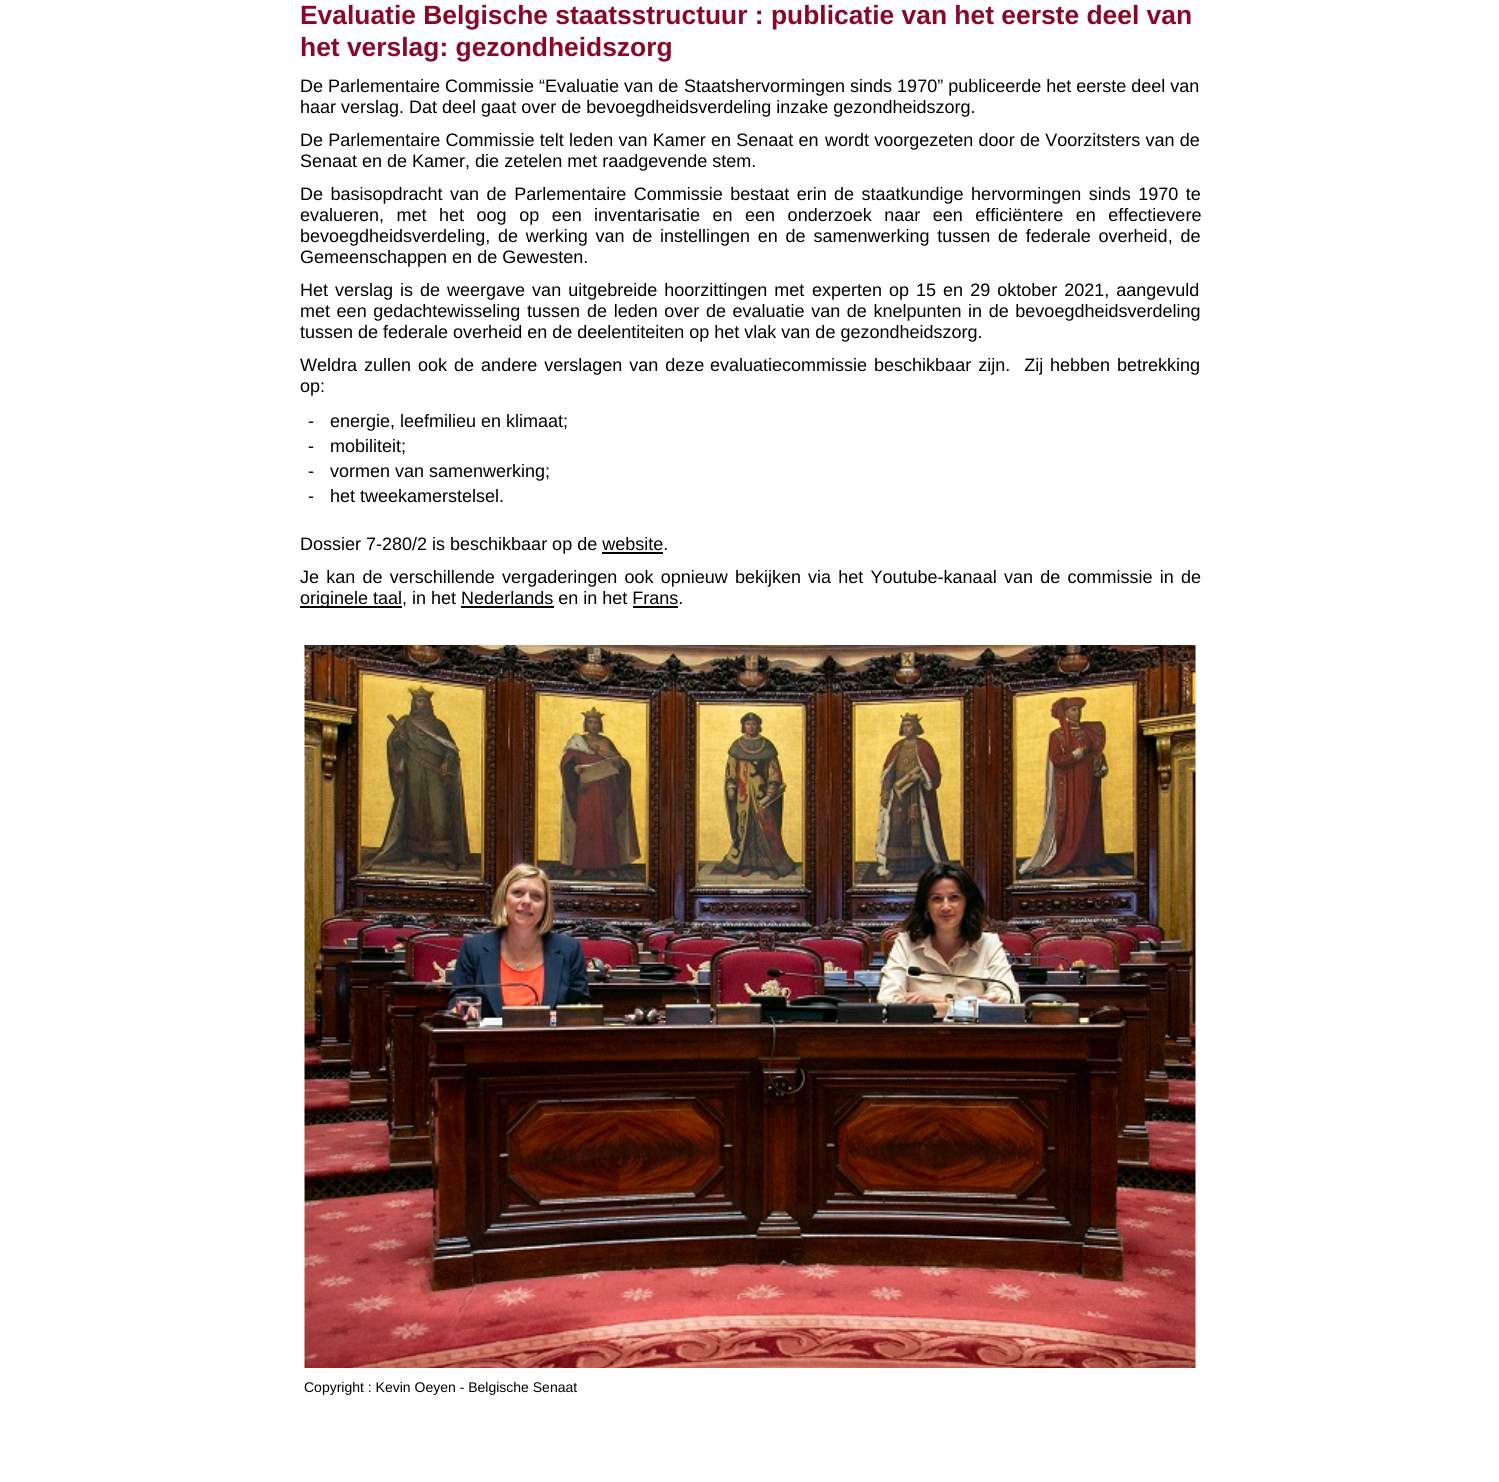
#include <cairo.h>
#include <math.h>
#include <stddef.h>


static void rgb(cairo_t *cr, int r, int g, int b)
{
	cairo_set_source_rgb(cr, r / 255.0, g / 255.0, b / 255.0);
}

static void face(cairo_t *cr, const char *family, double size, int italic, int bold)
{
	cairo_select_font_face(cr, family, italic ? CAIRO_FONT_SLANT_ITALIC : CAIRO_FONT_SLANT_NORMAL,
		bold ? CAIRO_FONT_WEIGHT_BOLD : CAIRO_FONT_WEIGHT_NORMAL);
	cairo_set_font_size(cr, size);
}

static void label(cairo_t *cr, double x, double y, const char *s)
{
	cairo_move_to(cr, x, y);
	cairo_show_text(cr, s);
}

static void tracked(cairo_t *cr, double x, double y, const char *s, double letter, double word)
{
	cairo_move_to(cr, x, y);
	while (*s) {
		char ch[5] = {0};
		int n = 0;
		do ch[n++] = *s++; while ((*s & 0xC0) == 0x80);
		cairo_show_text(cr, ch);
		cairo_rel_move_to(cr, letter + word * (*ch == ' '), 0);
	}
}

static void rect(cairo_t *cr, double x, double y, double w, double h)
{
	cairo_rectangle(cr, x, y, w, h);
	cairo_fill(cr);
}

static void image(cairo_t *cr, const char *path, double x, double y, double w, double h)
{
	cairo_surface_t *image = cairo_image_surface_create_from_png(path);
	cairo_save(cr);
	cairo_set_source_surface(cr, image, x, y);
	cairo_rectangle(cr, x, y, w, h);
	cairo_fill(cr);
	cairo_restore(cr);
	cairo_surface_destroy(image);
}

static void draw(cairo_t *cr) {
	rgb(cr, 255, 255, 255);
	cairo_paint(cr);
	face(cr, "Liberation Sans", 26.4, 0, 1);
	rgb(cr, 138, 6, 43);
	label(cr, 300, 24, "Evaluatie Belgische staatsstructuur : publicatie van het eerste deel van");
	label(cr, 300, 56, "het verslag: gezondheidszorg");
	face(cr, "Liberation Sans", 18, 0, 0);
	rgb(cr, 0, 0, 0);
	label(cr, 300, 92, "De Parlementaire Commissie “Evaluatie van de");
	label(cr, 684, 92, "Staatshervormingen sinds 1970” publiceerde het eerste deel van");
	label(cr, 300, 113, "haar verslag. Dat deel gaat over de bevoegdheidsverdeling inzake gezondheidszorg.");
	tracked(cr, 300, 146, "De Parlementaire Commissie telt leden van Kamer en Senaat en", 0, 0.25);
	tracked(cr, 825, 146, "wordt voorgezeten door de Voorzitsters van de", 0, 0.25);
	label(cr, 300, 167, "Senaat en de Kamer, die zetelen met raadgevende stem.");
	tracked(cr, 300, 200, "De basisopdracht van de Parlementaire Commissie bestaat erin", 0, 2.5);
	tracked(cr, 834, 200, "de staatkundige hervormingen sinds 1970 te", 0, 2.5);
	tracked(cr, 300, 221, "evalueren, met het oog op een", 0, 7.5);
	tracked(cr, 594, 221, "inventarisatie en een onderzoek naar een efficiëntere en effectievere", 0, 7.5);
	tracked(cr, 300, 242, "bevoegdheidsverdeling, de werking van de instellingen en de samenwerking tussen", 0, 2.75);
	tracked(cr, 998, 242, "de federale overheid, de", 0, 2.75);
	label(cr, 300, 263, "Gemeenschappen en de Gewesten.");
	tracked(cr, 300, 296, "Het verslag is de weergave van uitgebreide hoorzittingen met", 0, 2);
	tracked(cr, 812, 296, "experten op 15 en 29 oktober 2021, aangevuld", 0, 2);
	tracked(cr, 300, 317, "met een gedachtewisseling tussen", 0, 1.6);
	tracked(cr, 587, 317, "de leden over de evaluatie van de knelpunten in de bevoegdheidsverdeling", 0, 1.6);
	label(cr, 300, 338, "tussen de federale overheid en de deelentiteiten op het vlak van de gezondheidszorg.");
	tracked(cr, 300, 371, "Weldra zullen ook de andere verslagen van deze", 0, 2);
	tracked(cr, 710, 371, "evaluatiecommissie beschikbaar zijn.  Zij", 0, 2);
	tracked(cr, 1050, 371, "hebben betrekking", 0, 2);
	label(cr, 300, 392, "op:");
	label(cr, 308, 427, "-");
	label(cr, 330, 427, "energie, leefmilieu en klimaat;");
	label(cr, 308, 452, "-");
	label(cr, 330, 452, "mobiliteit;");
	label(cr, 308, 477, "-");
	label(cr, 330, 477, "vormen van samenwerking;");
	label(cr, 308, 502, "-");
	label(cr, 330, 502, "het tweekamerstelsel.");
	label(cr, 300, 550, "Dossier 7-280/2 is beschikbaar op de website.");
	rect(cr, 602, 552, 61, 2);
	tracked(cr, 300, 583, "Je kan de verschillende vergaderingen ook opnieuw bekijken", 0, 2.25);
	tracked(cr, 808, 583, "via het Youtube-kanaal van de commissie in de", 0, 2.25);
	rect(cr, 300, 606, 102, 2);
	label(cr, 300, 604, "originele taal, in het Nederlands en in het Frans.");
	rect(cr, 461, 606, 93, 2);
	rect(cr, 633, 606, 45, 2);
	image(cr, "image0.png", 304, 645, 892, 723);
	face(cr, "Liberation Sans", 14, 0, 0);
	label(cr, 304, 1392, "Copyright : Kevin Oeyen - Belgische Senaat");
}

int main(void) {
	cairo_surface_t *surface = cairo_image_surface_create(CAIRO_FORMAT_RGB24, 1499, 1482);
	cairo_t *cr = cairo_create(surface);
	cairo_font_options_t *options = cairo_font_options_create();
	cairo_font_options_set_hint_metrics(options, CAIRO_HINT_METRICS_OFF);
	cairo_font_options_set_hint_style(options, CAIRO_HINT_STYLE_NONE);
	cairo_set_font_options(cr, options);
	cairo_set_miter_limit(cr, 4);
	draw(cr);
	cairo_surface_write_to_png(surface, "render.png");
	cairo_font_options_destroy(options);
	cairo_destroy(cr);
	cairo_surface_destroy(surface);
	return 0;
}
